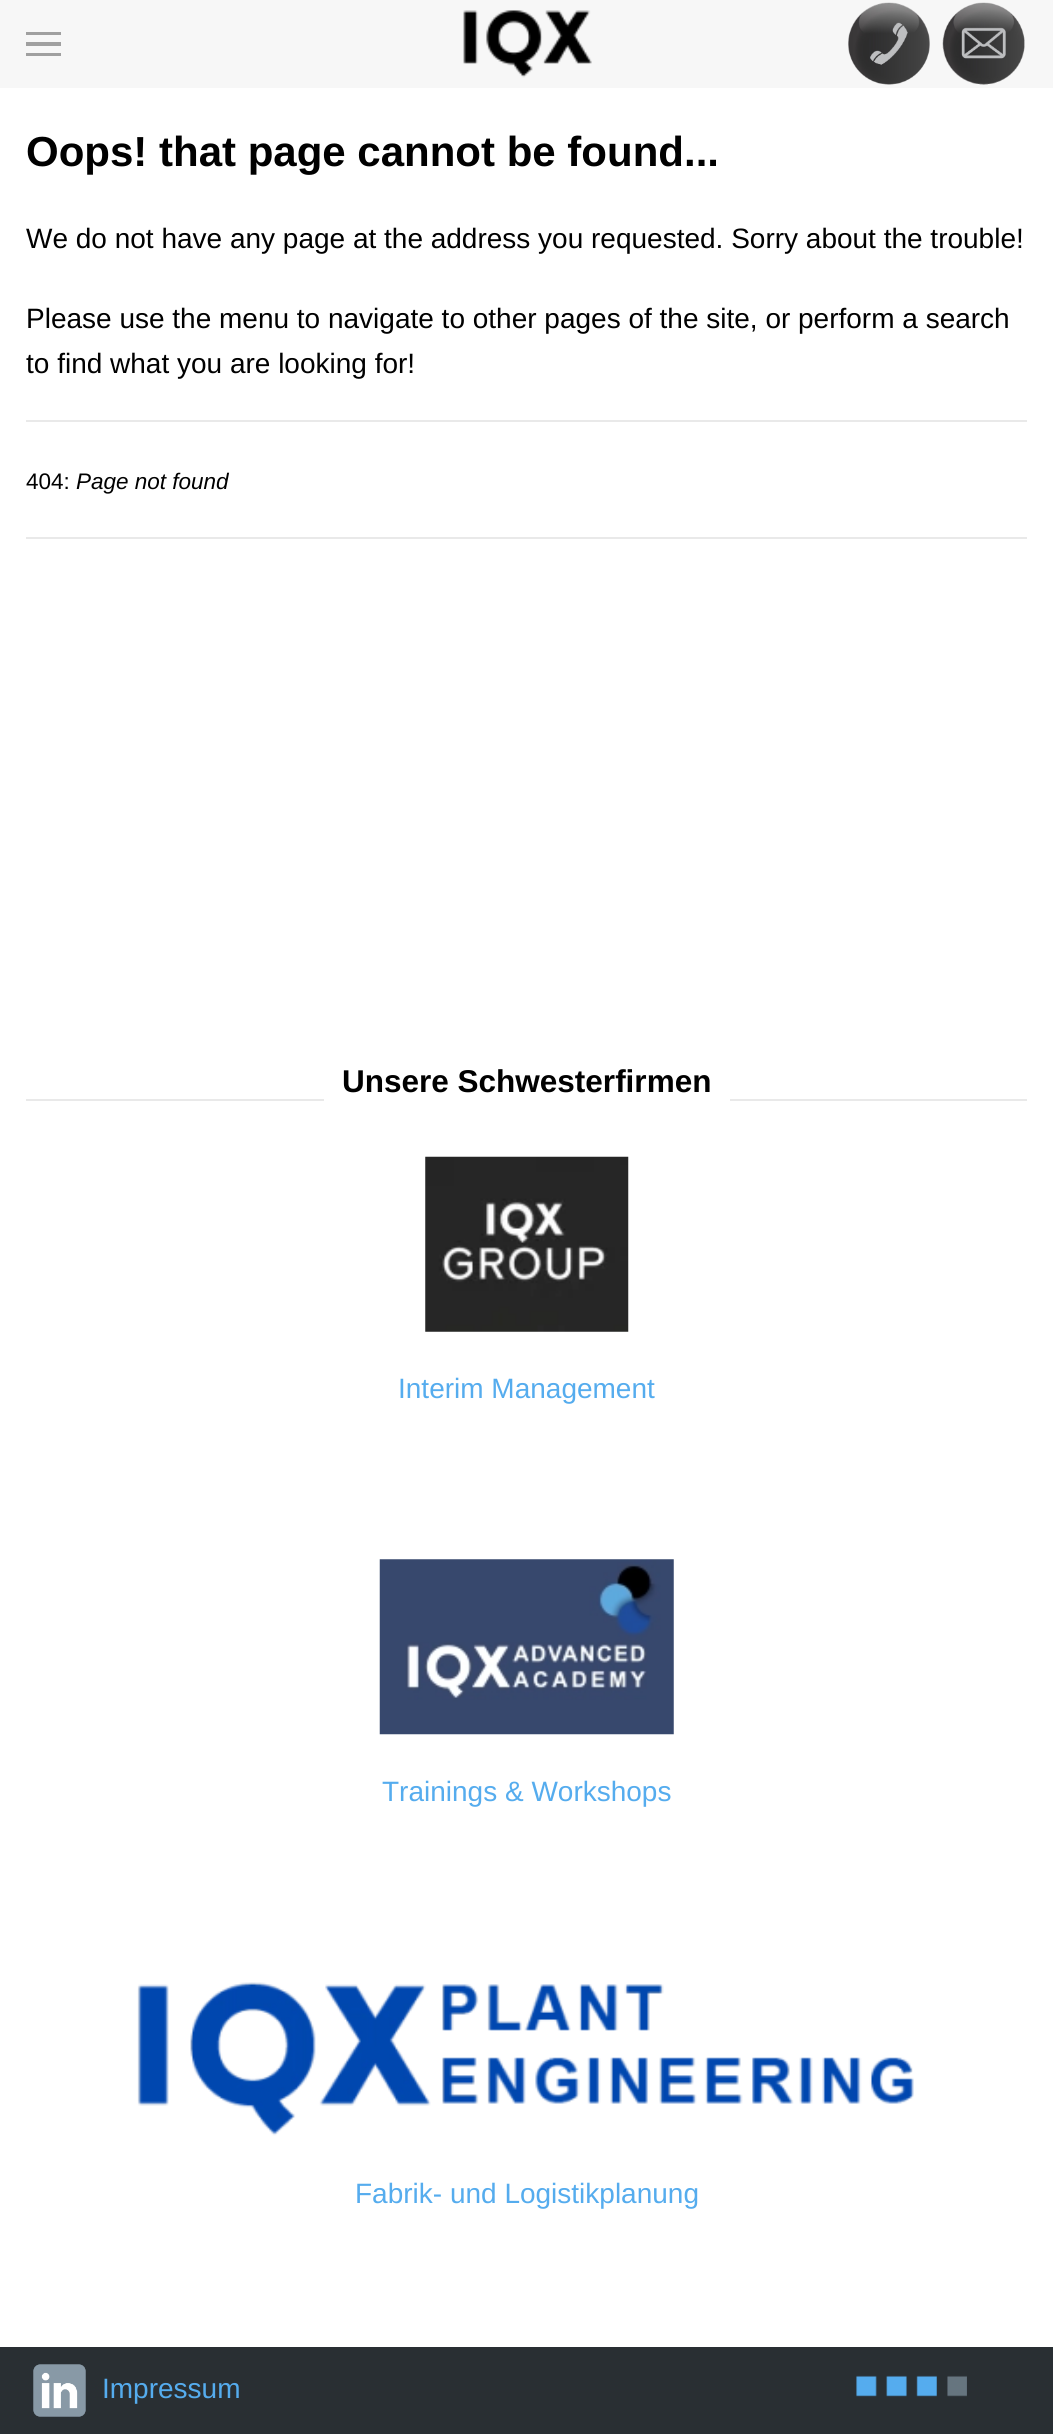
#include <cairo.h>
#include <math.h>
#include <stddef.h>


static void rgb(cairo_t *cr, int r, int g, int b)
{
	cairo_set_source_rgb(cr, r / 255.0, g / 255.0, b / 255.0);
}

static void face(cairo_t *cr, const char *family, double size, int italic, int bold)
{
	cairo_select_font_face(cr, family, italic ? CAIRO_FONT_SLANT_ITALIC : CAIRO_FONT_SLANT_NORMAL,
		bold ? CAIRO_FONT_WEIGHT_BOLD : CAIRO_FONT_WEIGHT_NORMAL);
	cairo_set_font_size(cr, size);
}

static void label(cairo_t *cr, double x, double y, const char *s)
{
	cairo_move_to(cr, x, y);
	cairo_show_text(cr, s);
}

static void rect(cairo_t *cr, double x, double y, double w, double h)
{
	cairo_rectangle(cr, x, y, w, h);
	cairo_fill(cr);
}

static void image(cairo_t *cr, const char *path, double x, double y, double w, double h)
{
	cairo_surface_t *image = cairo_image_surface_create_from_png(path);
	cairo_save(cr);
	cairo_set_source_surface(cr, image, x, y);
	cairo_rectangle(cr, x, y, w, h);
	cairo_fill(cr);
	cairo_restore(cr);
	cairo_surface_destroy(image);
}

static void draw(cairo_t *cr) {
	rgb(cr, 255, 255, 255);
	cairo_paint(cr);
	rgb(cr, 247, 247, 247);
	rect(cr, 0, 0, 1053, 88);
	rgb(cr, 160, 160, 160);
	rect(cr, 26, 32, 35, 3);
	rect(cr, 26, 42, 35, 4);
	rect(cr, 26, 53, 35, 3);
	image(cr, "image0.png", 463, 10, 129, 68);
	image(cr, "image1.png", 848, 2, 82, 83);
	image(cr, "image2.png", 942, 2, 83, 83);
	face(cr, "Liberation Sans", 42, 0, 1);
	rgb(cr, 0, 0, 0);
	label(cr, 26, 166, "Oops! that page cannot be found...");
	face(cr, "Liberation Sans", 28, 0, 0);
	label(cr, 26, 248, "We do not have any page at the address you requested. Sorry about the trouble!");
	label(cr, 26, 328, "Please use the menu to navigate to other pages of the site, or perform a search");
	label(cr, 26, 373, "to find what you are looking for!");
	rgb(cr, 233, 233, 233);
	rect(cr, 26, 420, 1001, 2);
	face(cr, "Liberation Sans", 22.5, 0, 0);
	rgb(cr, 0, 0, 0);
	label(cr, 26, 489, "404:");
	face(cr, "Liberation Sans", 22.5, 1, 0);
	label(cr, 76, 489, "Page not found");
	rgb(cr, 233, 233, 233);
	rect(cr, 26, 537, 1001, 2);
	face(cr, "Liberation Sans", 31.5, 0, 1);
	rgb(cr, 0, 0, 0);
	label(cr, 342, 1092, "Unsere Schwesterfirmen");
	rgb(cr, 233, 233, 233);
	rect(cr, 26, 1099, 298, 2);
	rect(cr, 730, 1099, 297, 2);
	image(cr, "image3.png", 425, 1156, 204, 176);
	face(cr, "Liberation Sans", 28, 0, 0);
	rgb(cr, 85, 172, 238);
	label(cr, 398, 1398, "Interim Management");
	image(cr, "image4.png", 379, 1559, 295, 176);
	label(cr, 382, 1801, "Trainings & Workshops");
	image(cr, "image5.png", 137, 1982, 777, 154);
	label(cr, 355, 2203, "Fabrik- und Logistikplanung");
	rgb(cr, 41, 47, 51);
	rect(cr, 0, 2347, 1053, 87);
	image(cr, "image6.png", 33, 2364, 53, 53);
	rgb(cr, 85, 172, 238);
	label(cr, 102, 2398, "Impressum");
	image(cr, "image7.png", 856, 2375, 111, 22);
}

int main(void) {
	cairo_surface_t *surface = cairo_image_surface_create(CAIRO_FORMAT_RGB24, 1053, 2434);
	cairo_t *cr = cairo_create(surface);
	cairo_font_options_t *options = cairo_font_options_create();
	cairo_font_options_set_hint_metrics(options, CAIRO_HINT_METRICS_OFF);
	cairo_font_options_set_hint_style(options, CAIRO_HINT_STYLE_NONE);
	cairo_set_font_options(cr, options);
	cairo_set_miter_limit(cr, 4);
	draw(cr);
	cairo_surface_write_to_png(surface, "render.png");
	cairo_font_options_destroy(options);
	cairo_destroy(cr);
	cairo_surface_destroy(surface);
	return 0;
}
